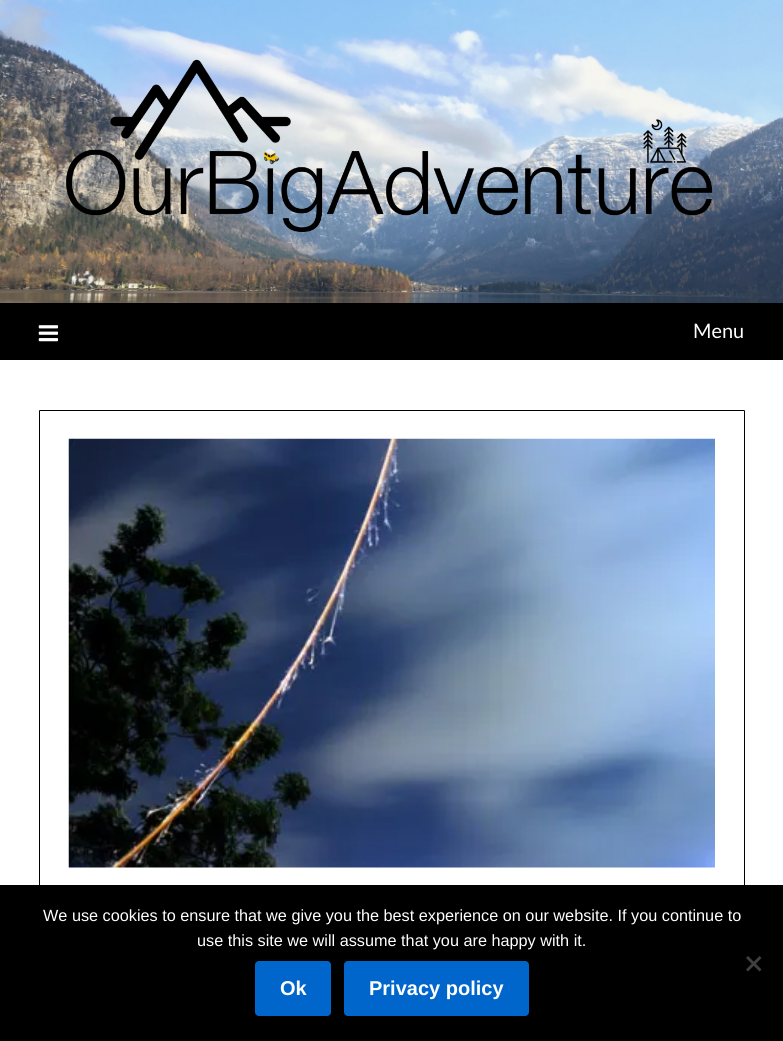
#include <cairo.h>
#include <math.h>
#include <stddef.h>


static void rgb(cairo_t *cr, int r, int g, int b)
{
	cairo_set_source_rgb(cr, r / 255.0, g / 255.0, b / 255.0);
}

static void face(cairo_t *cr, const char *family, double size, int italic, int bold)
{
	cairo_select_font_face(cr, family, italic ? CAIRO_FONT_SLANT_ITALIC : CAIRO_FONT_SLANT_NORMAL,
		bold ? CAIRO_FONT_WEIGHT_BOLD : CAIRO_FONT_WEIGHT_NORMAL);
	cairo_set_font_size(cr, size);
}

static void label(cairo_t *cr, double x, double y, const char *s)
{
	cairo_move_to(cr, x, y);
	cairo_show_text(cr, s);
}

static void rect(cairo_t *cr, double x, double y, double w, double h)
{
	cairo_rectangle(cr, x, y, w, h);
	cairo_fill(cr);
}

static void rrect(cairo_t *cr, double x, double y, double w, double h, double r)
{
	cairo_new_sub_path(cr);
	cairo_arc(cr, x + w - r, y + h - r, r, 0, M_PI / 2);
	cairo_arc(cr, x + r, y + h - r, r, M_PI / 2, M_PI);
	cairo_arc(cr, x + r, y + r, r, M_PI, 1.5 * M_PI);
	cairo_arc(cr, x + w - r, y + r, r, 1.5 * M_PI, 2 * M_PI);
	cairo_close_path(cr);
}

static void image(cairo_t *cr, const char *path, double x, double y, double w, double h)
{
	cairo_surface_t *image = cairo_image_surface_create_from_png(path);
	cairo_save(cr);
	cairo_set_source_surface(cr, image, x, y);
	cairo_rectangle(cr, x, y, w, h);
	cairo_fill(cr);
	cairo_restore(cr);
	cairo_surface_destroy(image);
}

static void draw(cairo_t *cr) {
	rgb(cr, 255, 255, 255);
	cairo_paint(cr);
	image(cr, "image0.png", 0, 0, 783, 303);
	image(cr, "image1.png", 66, 59, 647, 174);
	rgb(cr, 0, 0, 0);
	rect(cr, 0, 303, 783, 57);
	image(cr, "image2.png", 38, 325, 21, 17);
	face(cr, "Lato", 20, 0, 0);
	rgb(cr, 255, 255, 255);
	label(cr, 693, 338, "Menu");
	rrect(cr, 39.5, 410.5, 705, 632, 0.5);
	rgb(cr, 0, 0, 0);
	cairo_set_line_width(cr, 1);
	cairo_stroke(cr);
	image(cr, "image3.png", 68, 438, 647, 430);
	rect(cr, 0, 885, 783, 156);
	face(cr, "Liberation Sans", 16.25, 0, 0);
	rgb(cr, 255, 255, 255);
	label(cr, 43, 921, "We use cookies to ensure that we give you the best experience on our website. If you continue to");
	label(cr, 197, 946, "use this site we will assume that you are happy with it.");
	rgb(cr, 64, 64, 64);
	cairo_new_path(cr);
	cairo_move_to(cr, 759.5, 956);
	cairo_line_to(cr, 761.5, 958);
	cairo_line_to(cr, 748, 971.5);
	cairo_line_to(cr, 746, 969.5);
	cairo_close_path(cr);
	cairo_fill(cr);
	cairo_new_path(cr);
	cairo_move_to(cr, 746, 958);
	cairo_line_to(cr, 748, 956);
	cairo_line_to(cr, 761.5, 969.5);
	cairo_line_to(cr, 759.5, 971.5);
	cairo_close_path(cr);
	cairo_fill(cr);
	rgb(cr, 0, 102, 204);
	rrect(cr, 255, 961, 76, 55, 4);
	cairo_fill(cr);
	face(cr, "Liberation Sans", 20, 0, 1);
	rgb(cr, 255, 255, 255);
	label(cr, 280, 995, "Ok");
	rgb(cr, 0, 102, 204);
	rrect(cr, 344, 961, 185, 55, 4);
	cairo_fill(cr);
	rgb(cr, 255, 255, 255);
	label(cr, 369, 995, "Privacy policy");
}

int main(void) {
	cairo_surface_t *surface = cairo_image_surface_create(CAIRO_FORMAT_RGB24, 783, 1041);
	cairo_t *cr = cairo_create(surface);
	cairo_font_options_t *options = cairo_font_options_create();
	cairo_font_options_set_hint_metrics(options, CAIRO_HINT_METRICS_OFF);
	cairo_font_options_set_hint_style(options, CAIRO_HINT_STYLE_NONE);
	cairo_set_font_options(cr, options);
	cairo_set_miter_limit(cr, 4);
	draw(cr);
	cairo_surface_write_to_png(surface, "render.png");
	cairo_font_options_destroy(options);
	cairo_destroy(cr);
	cairo_surface_destroy(surface);
	return 0;
}
